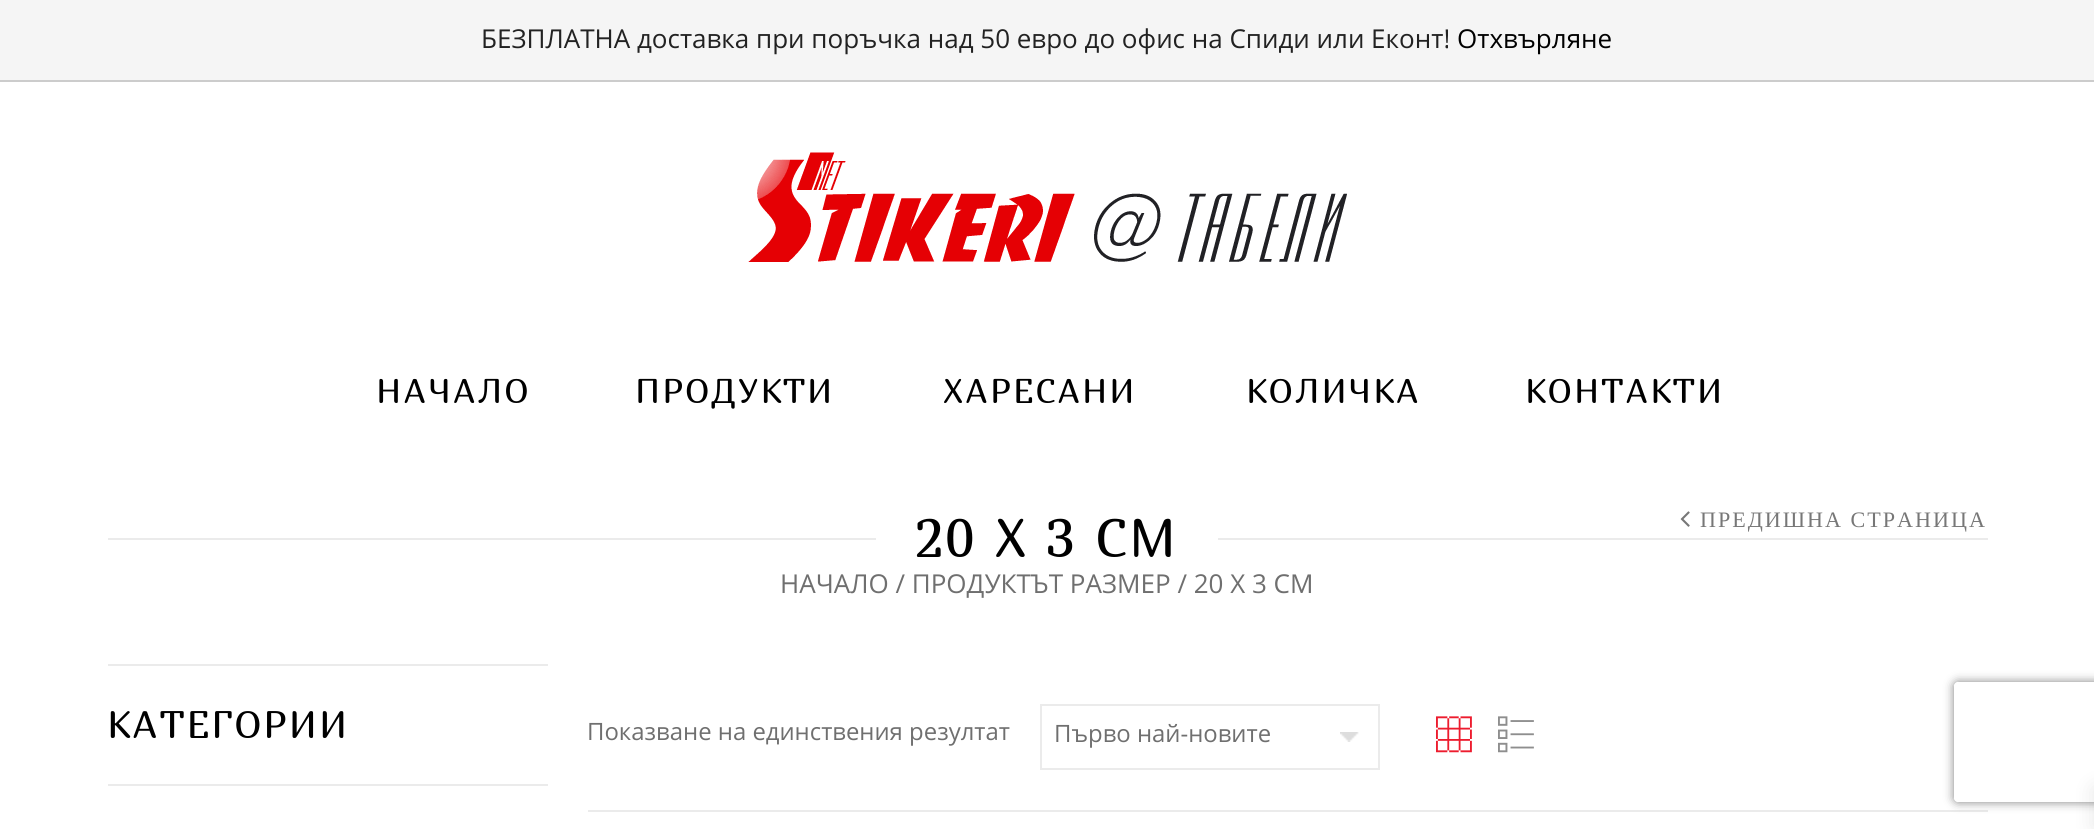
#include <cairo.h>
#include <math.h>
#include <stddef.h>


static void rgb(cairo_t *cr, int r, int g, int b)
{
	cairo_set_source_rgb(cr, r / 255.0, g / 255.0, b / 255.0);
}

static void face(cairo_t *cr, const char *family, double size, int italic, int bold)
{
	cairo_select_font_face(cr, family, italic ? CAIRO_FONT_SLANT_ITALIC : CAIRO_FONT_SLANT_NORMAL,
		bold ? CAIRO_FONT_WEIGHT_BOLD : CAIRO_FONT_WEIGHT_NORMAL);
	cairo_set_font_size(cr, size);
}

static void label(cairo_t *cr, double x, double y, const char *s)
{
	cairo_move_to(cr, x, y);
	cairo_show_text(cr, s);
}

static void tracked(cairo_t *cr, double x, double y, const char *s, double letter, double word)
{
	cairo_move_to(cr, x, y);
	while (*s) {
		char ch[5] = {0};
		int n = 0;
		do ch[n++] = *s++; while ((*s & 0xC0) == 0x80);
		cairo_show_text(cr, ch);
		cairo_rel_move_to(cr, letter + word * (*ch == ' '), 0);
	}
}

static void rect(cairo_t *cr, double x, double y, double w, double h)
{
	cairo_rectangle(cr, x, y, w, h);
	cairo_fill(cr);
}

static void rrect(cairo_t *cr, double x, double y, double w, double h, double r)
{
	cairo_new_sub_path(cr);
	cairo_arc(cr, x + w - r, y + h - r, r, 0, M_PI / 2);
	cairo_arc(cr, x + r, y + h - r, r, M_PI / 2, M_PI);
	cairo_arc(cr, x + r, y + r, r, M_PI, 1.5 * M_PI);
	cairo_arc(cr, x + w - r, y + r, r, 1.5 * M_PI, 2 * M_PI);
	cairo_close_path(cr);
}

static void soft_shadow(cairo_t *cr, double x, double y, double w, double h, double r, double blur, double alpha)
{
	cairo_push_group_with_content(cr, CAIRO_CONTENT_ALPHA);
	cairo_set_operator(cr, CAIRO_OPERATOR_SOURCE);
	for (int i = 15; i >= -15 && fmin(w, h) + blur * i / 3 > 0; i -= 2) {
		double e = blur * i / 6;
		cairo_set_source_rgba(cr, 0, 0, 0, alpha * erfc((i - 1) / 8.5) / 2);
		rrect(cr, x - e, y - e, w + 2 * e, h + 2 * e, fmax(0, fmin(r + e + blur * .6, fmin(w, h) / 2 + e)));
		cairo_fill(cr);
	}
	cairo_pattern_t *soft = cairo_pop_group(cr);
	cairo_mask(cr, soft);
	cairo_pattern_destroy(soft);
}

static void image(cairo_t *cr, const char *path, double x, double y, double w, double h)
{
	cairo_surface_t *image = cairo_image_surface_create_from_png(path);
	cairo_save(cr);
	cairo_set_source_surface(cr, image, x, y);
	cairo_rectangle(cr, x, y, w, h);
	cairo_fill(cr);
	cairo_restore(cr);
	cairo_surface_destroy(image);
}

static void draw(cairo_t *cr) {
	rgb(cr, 255, 255, 255);
	cairo_paint(cr);
	rgb(cr, 245, 245, 245);
	rect(cr, 0, 0, 2094, 80);
	rgb(cr, 204, 204, 204);
	rect(cr, 0, 80, 2094, 2);
	face(cr, "Open Sans", 26, 0, 0);
	rgb(cr, 34, 34, 34);
	label(cr, 481, 48, "БЕЗПЛАТНА доставка при поръчка над 50 евро до офис на Спиди или Еконт!");
	rgb(cr, 0, 0, 0);
	label(cr, 1457, 48, "Отхвърляне");
	image(cr, "image0.png", 748, 152, 599, 110);
	face(cr, "Marmelad", 34, 0, 0);
	tracked(cr, 376, 403, "НАЧАЛО", 2, 0);
	tracked(cr, 635, 403, "ПРОДУКТИ", 2, 0);
	tracked(cr, 943, 403, "ХАРЕСАНИ", 2, 0);
	tracked(cr, 1246, 403, "КОЛИЧКА", 2, 0);
	tracked(cr, 1525, 403, "КОНТАКТИ", 2, 0);
	rgb(cr, 235, 235, 235);
	rect(cr, 108, 538, 1880, 2);
	rgb(cr, 255, 255, 255);
	rect(cr, 876, 538, 342, 2);
	face(cr, "Marmelad", 54, 0, 0);
	rgb(cr, 0, 0, 0);
	tracked(cr, 915, 557, "20 X 3 СМ", 2, 0);
	image(cr, "image1.png", 1680, 511, 10, 16);
	face(cr, "Liberation Serif", 22.1, 0, 0);
	rgb(cr, 119, 119, 119);
	tracked(cr, 1700, 527, "ПРЕДИШНА СТРАНИЦА", 2, 0);
	face(cr, "Open Sans", 26, 0, 0);
	rgb(cr, 111, 111, 111);
	label(cr, 780, 593, "НАЧАЛО / ПРОДУКТЪТ РАЗМЕР / 20 X 3 СМ");
	rgb(cr, 235, 235, 235);
	rect(cr, 108, 664, 440, 2);
	rect(cr, 108, 784, 440, 2);
	face(cr, "Marmelad", 38, 0, 0);
	rgb(cr, 0, 0, 0);
	tracked(cr, 107, 738, "КАТЕГОРИИ", 2, 0);
	rgb(cr, 235, 235, 235);
	rect(cr, 588, 810, 1400, 2);
	face(cr, "Open Sans", 23.9, 0, 0);
	rgb(cr, 111, 111, 111);
	label(cr, 587, 740, "Показване на единствения резултат");
	image(cr, "image2.png", 1340, 732, 19, 10);
	cairo_rectangle(cr, 1041, 705, 338, 64);
	rgb(cr, 235, 235, 235);
	cairo_stroke(cr);
	rgb(cr, 111, 111, 111);
	label(cr, 1054, 742, "Първо най-новите");
	image(cr, "image3.png", 1436, 716, 36, 37);
	image(cr, "image4.png", 1498, 716, 36, 37);
	cairo_save(cr);
	cairo_set_fill_rule(cr, CAIRO_FILL_RULE_EVEN_ODD);
	cairo_new_path(cr);
	cairo_move_to(cr, 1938, 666);
	cairo_line_to(cr, 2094, 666);
	cairo_line_to(cr, 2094, 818);
	cairo_line_to(cr, 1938, 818);
	cairo_close_path(cr);
	cairo_move_to(cr, 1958, 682);
	cairo_line_to(cr, 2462, 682);
	cairo_curve_to(cr, 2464, 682, 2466, 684, 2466, 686);
	cairo_line_to(cr, 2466, 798);
	cairo_curve_to(cr, 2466, 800, 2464, 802, 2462, 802);
	cairo_line_to(cr, 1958, 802);
	cairo_curve_to(cr, 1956, 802, 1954, 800, 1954, 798);
	cairo_line_to(cr, 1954, 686);
	cairo_curve_to(cr, 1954, 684, 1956, 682, 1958, 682);
	cairo_close_path(cr);
	cairo_clip(cr);
	rgb(cr, 128, 128, 128);
	soft_shadow(cr, 1954, 682, 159, 120, 4, 5, 1);
	cairo_restore(cr);
	rgb(cr, 0, 0, 0);
	soft_shadow(cr, 2094, 788, 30, 40, 0, 10, 0.1);
}

int main(void) {
	cairo_surface_t *surface = cairo_image_surface_create(CAIRO_FORMAT_RGB24, 2094, 829);
	cairo_t *cr = cairo_create(surface);
	cairo_font_options_t *options = cairo_font_options_create();
	cairo_font_options_set_hint_metrics(options, CAIRO_HINT_METRICS_OFF);
	cairo_font_options_set_hint_style(options, CAIRO_HINT_STYLE_NONE);
	cairo_set_font_options(cr, options);
	cairo_set_miter_limit(cr, 4);
	draw(cr);
	cairo_surface_write_to_png(surface, "render.png");
	cairo_font_options_destroy(options);
	cairo_destroy(cr);
	cairo_surface_destroy(surface);
	return 0;
}
